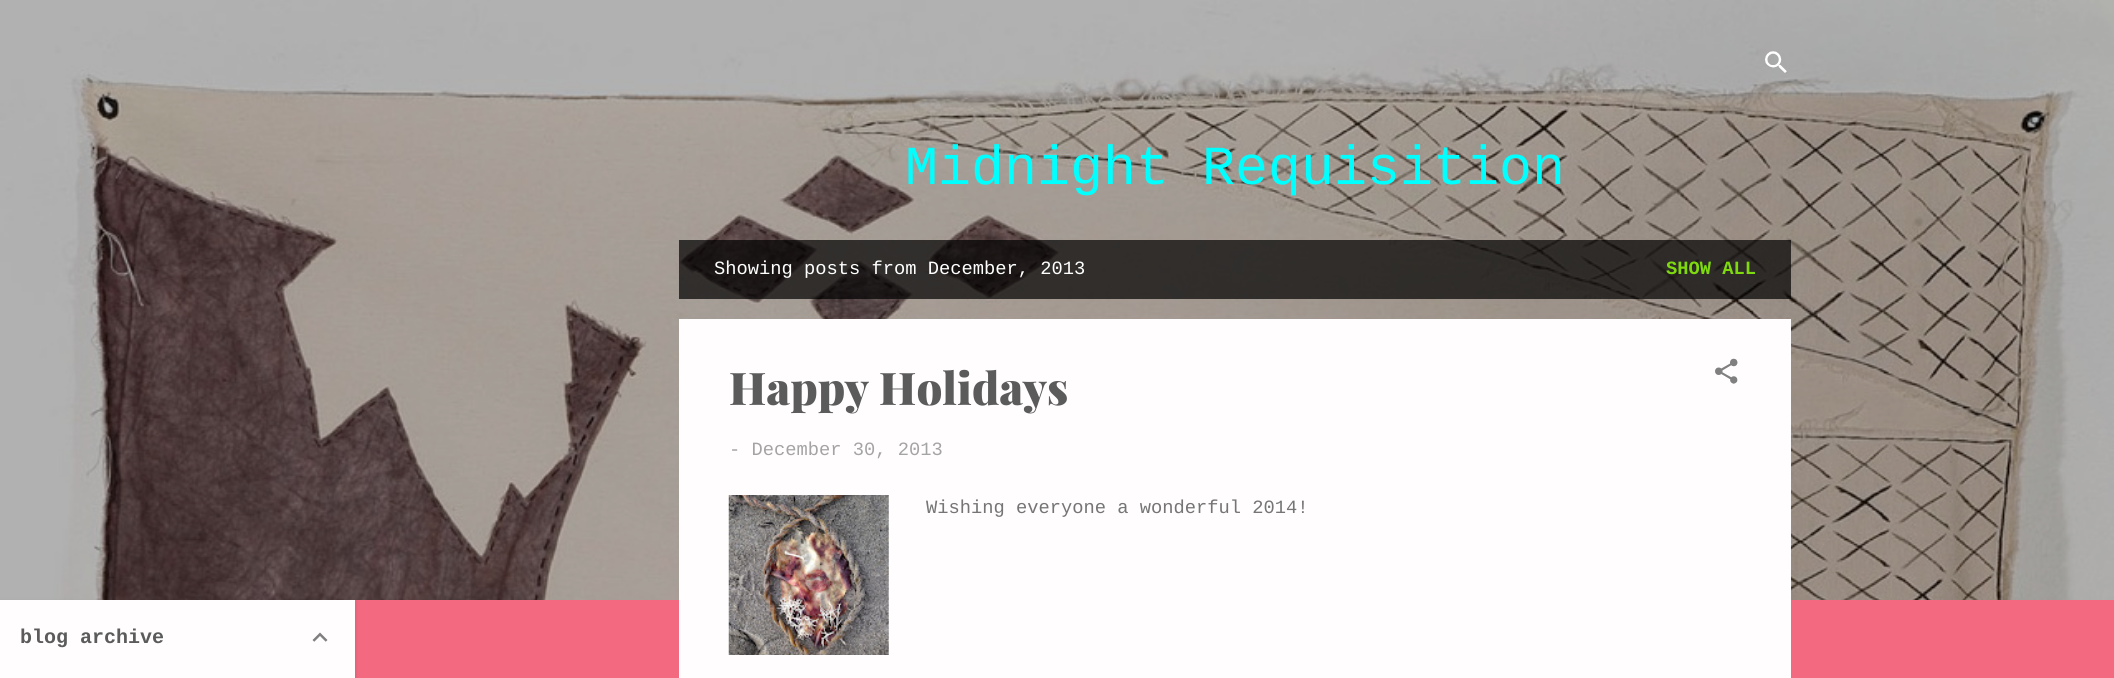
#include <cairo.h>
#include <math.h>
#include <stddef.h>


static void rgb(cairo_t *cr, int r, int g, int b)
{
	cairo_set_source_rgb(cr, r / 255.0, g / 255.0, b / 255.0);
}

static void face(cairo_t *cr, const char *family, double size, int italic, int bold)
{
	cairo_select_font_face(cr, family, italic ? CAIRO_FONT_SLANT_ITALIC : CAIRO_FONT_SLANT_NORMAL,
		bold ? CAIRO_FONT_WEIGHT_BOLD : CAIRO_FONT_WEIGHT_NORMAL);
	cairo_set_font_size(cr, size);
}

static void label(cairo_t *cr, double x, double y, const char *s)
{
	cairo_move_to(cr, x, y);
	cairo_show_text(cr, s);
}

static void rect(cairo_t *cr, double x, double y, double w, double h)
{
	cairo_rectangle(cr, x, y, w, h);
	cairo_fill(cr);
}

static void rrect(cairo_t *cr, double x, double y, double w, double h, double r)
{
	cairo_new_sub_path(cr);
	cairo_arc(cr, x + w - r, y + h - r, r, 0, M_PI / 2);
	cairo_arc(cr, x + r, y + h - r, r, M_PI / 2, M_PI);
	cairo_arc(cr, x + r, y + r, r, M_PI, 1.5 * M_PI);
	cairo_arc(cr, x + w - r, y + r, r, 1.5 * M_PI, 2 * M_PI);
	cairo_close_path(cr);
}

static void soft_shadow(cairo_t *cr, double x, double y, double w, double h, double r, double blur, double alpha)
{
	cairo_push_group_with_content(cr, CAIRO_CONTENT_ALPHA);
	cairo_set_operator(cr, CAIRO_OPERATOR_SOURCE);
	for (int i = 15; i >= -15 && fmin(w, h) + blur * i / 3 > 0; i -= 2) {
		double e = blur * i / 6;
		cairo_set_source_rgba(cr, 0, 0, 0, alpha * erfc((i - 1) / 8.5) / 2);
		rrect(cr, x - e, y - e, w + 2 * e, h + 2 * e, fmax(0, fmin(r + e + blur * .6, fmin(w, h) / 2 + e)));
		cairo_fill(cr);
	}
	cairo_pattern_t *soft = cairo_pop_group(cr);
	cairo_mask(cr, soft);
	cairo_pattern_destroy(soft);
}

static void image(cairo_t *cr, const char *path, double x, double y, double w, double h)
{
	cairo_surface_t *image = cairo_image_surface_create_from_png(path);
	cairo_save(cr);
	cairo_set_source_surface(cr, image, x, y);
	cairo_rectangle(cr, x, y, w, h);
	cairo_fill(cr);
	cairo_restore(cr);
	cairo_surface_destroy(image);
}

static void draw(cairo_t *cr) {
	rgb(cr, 243, 105, 128);
	cairo_paint(cr);
	image(cr, "image0.png", 0, 0, 2114, 600);
	image(cr, "image1.png", 1765, 51, 22, 22);
	face(cr, "Liberation Mono", 55, 0, 0);
	rgb(cr, 0, 255, 255);
	label(cr, 905, 184, "Midnight Requisition");
	cairo_set_source_rgba(cr, 0, 0, 0, 0.7);
	rect(cr, 679, 240, 1112, 59);
	face(cr, "Liberation Mono", 18.75, 0, 0);
	rgb(cr, 255, 255, 255);
	label(cr, 714, 274, "Showing posts from December, 2013");
	face(cr, "Liberation Mono", 18.75, 0, 1);
	rgb(cr, 126, 218, 15);
	label(cr, 1666, 274, "SHOW ALL");
	rgb(cr, 255, 253, 253);
	rect(cr, 679, 319, 1112, 359);
	face(cr, "Playfair Display Black", 45, 0, 0);
	rgb(cr, 91, 91, 91);
	label(cr, 729, 405, "Happy Holidays");
	image(cr, "image2.png", 1715, 358, 23, 26);
	face(cr, "Liberation Mono", 18.75, 0, 0);
	rgb(cr, 165, 164, 164);
	label(cr, 729, 455, "- December 30, 2013");
	image(cr, "image3.png", 728, 495, 161, 160);
	rgb(cr, 117, 117, 117);
	label(cr, 926, 513, "Wishing everyone a wonderful 2014!");
	rgb(cr, 0, 0, 0);
	soft_shadow(cr, 1, 601, 355, 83, 0, 2, 0.1);
	rgb(cr, 255, 253, 253);
	rect(cr, 0, 600, 355, 78);
	face(cr, "Liberation Mono", 20, 0, 1);
	rgb(cr, 91, 91, 91);
	label(cr, 20, 643, "blog archive");
	image(cr, "image4.png", 312, 632, 16, 10);
}

int main(void) {
	cairo_surface_t *surface = cairo_image_surface_create(CAIRO_FORMAT_RGB24, 2114, 678);
	cairo_t *cr = cairo_create(surface);
	cairo_font_options_t *options = cairo_font_options_create();
	cairo_font_options_set_hint_metrics(options, CAIRO_HINT_METRICS_OFF);
	cairo_font_options_set_hint_style(options, CAIRO_HINT_STYLE_NONE);
	cairo_set_font_options(cr, options);
	cairo_set_miter_limit(cr, 4);
	draw(cr);
	cairo_surface_write_to_png(surface, "render.png");
	cairo_font_options_destroy(options);
	cairo_destroy(cr);
	cairo_surface_destroy(surface);
	return 0;
}
